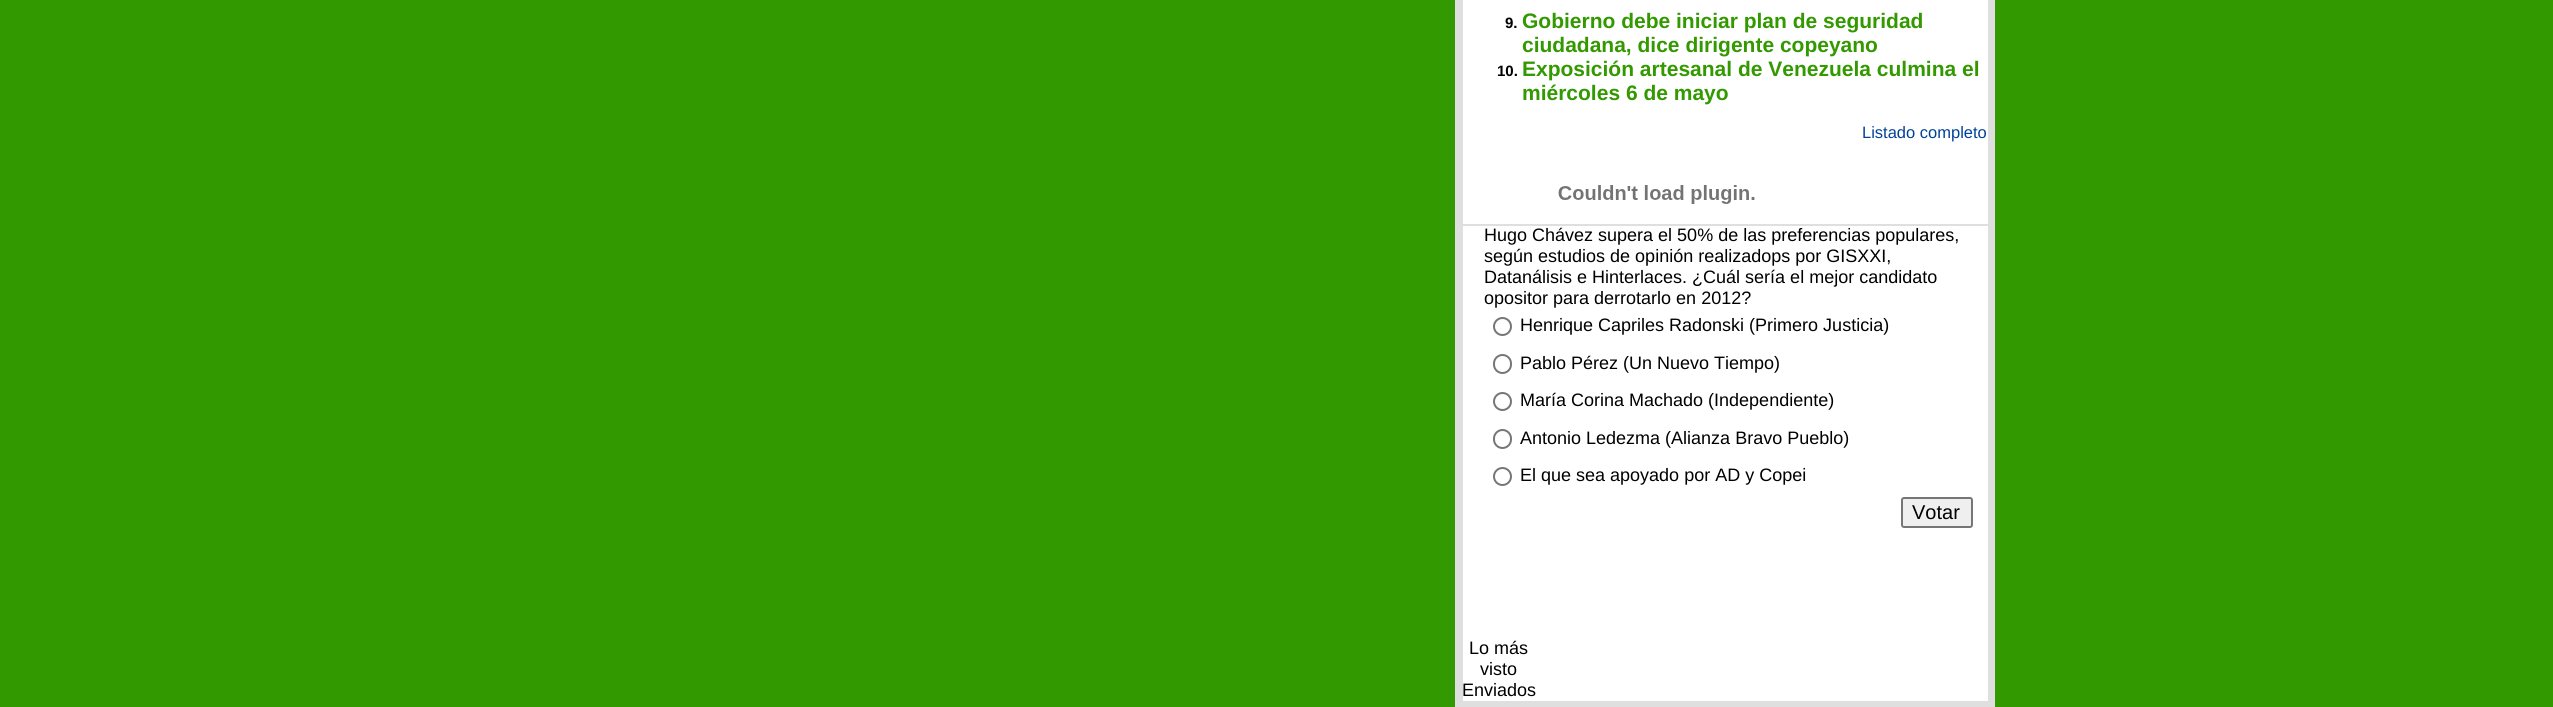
#include <cairo.h>
#include <math.h>
#include <stddef.h>


static void rgb(cairo_t *cr, int r, int g, int b)
{
	cairo_set_source_rgb(cr, r / 255.0, g / 255.0, b / 255.0);
}

static void face(cairo_t *cr, const char *family, double size, int italic, int bold)
{
	cairo_select_font_face(cr, family, italic ? CAIRO_FONT_SLANT_ITALIC : CAIRO_FONT_SLANT_NORMAL,
		bold ? CAIRO_FONT_WEIGHT_BOLD : CAIRO_FONT_WEIGHT_NORMAL);
	cairo_set_font_size(cr, size);
}

static void label(cairo_t *cr, double x, double y, const char *s)
{
	cairo_move_to(cr, x, y);
	cairo_show_text(cr, s);
}

static void rect(cairo_t *cr, double x, double y, double w, double h)
{
	cairo_rectangle(cr, x, y, w, h);
	cairo_fill(cr);
}

static void rrect(cairo_t *cr, double x, double y, double w, double h, double r)
{
	cairo_new_sub_path(cr);
	cairo_arc(cr, x + w - r, y + h - r, r, 0, M_PI / 2);
	cairo_arc(cr, x + r, y + h - r, r, M_PI / 2, M_PI);
	cairo_arc(cr, x + r, y + r, r, M_PI, 1.5 * M_PI);
	cairo_arc(cr, x + w - r, y + r, r, 1.5 * M_PI, 2 * M_PI);
	cairo_close_path(cr);
}

static void image(cairo_t *cr, const char *path, double x, double y, double w, double h)
{
	cairo_surface_t *image = cairo_image_surface_create_from_png(path);
	cairo_save(cr);
	cairo_set_source_surface(cr, image, x, y);
	cairo_rectangle(cr, x, y, w, h);
	cairo_fill(cr);
	cairo_restore(cr);
	cairo_surface_destroy(image);
}

static void draw(cairo_t *cr) {
	rgb(cr, 51, 153, 0);
	cairo_paint(cr);
	rgb(cr, 223, 223, 223);
	rect(cr, 1455, 0, 540, 707);
	rgb(cr, 255, 255, 255);
	rect(cr, 1463, 0, 525, 701);
	face(cr, "Liberation Sans", 15, 0, 1);
	rgb(cr, 0, 0, 0);
	label(cr, 1505, 28, "9.");
	face(cr, "Liberation Sans", 21, 0, 1);
	rgb(cr, 51, 153, 0);
	label(cr, 1522, 28, "Gobierno debe iniciar plan de seguridad");
	label(cr, 1522, 52, "ciudadana, dice dirigente copeyano");
	face(cr, "Liberation Sans", 15, 0, 1);
	rgb(cr, 0, 0, 0);
	label(cr, 1497, 76, "10.");
	face(cr, "Liberation Sans", 21, 0, 1);
	rgb(cr, 51, 153, 0);
	label(cr, 1522, 76, "Exposición artesanal de Venezuela culmina el");
	label(cr, 1522, 100, "miércoles 6 de mayo");
	face(cr, "Liberation Sans", 16.5, 0, 0);
	rgb(cr, 0, 66, 152);
	label(cr, 1862, 138, "Listado completo");
	rgb(cr, 223, 223, 223);
	rect(cr, 1463, 224, 525, 2);
	image(cr, "image0.png", 1558, 185, 197, 19);
	face(cr, "Liberation Sans", 18, 0, 0);
	rgb(cr, 0, 0, 0);
	label(cr, 1484, 241, "Hugo Chávez supera el 50% de las preferencias populares,");
	label(cr, 1484, 262, "según estudios de opinión realizadops por GISXXI,");
	label(cr, 1484, 283, "Datanálisis e Hinterlaces. ¿Cuál sería el mejor candidato");
	label(cr, 1484, 304, "opositor para derrotarlo en 2012?");
	cairo_new_path(cr);
	cairo_arc(cr, 1502.5, 326.5, 8.5, 0, 2 * M_PI);
	rgb(cr, 118, 118, 118);
	cairo_stroke(cr);
	rgb(cr, 0, 0, 0);
	label(cr, 1520, 331, "Henrique Capriles Radonski (Primero Justicia)");
	rrect(cr, 1494, 355, 17, 18, 8.5);
	rgb(cr, 118, 118, 118);
	cairo_stroke(cr);
	rgb(cr, 0, 0, 0);
	label(cr, 1520, 369, "Pablo Pérez (Un Nuevo Tiempo)");
	cairo_new_path(cr);
	cairo_arc(cr, 1502.5, 401.5, 8.5, 0, 2 * M_PI);
	rgb(cr, 118, 118, 118);
	cairo_stroke(cr);
	rgb(cr, 0, 0, 0);
	label(cr, 1520, 406, "María Corina Machado (Independiente)");
	rrect(cr, 1494, 430, 17, 18, 8.5);
	rgb(cr, 118, 118, 118);
	cairo_stroke(cr);
	rgb(cr, 0, 0, 0);
	label(cr, 1520, 444, "Antonio Ledezma (Alianza Bravo Pueblo)");
	cairo_new_path(cr);
	cairo_arc(cr, 1502.5, 476.5, 8.5, 0, 2 * M_PI);
	rgb(cr, 118, 118, 118);
	cairo_stroke(cr);
	rgb(cr, 0, 0, 0);
	label(cr, 1520, 481, "El que sea apoyado por AD y Copei");
	rgb(cr, 239, 239, 239);
	rrect(cr, 1902, 498, 70, 29, 2);
	cairo_fill_preserve(cr);
	rgb(cr, 118, 118, 118);
	cairo_stroke(cr);
	face(cr, "Liberation Sans", 20, 0, 0);
	rgb(cr, 0, 0, 0);
	label(cr, 1912, 519, "Votar");
	face(cr, "Liberation Sans", 18, 0, 0);
	label(cr, 1469, 654, "Lo más");
	label(cr, 1480, 675, "visto");
	label(cr, 1462, 696, "Enviados");
}

int main(void) {
	cairo_surface_t *surface = cairo_image_surface_create(CAIRO_FORMAT_RGB24, 2553, 707);
	cairo_t *cr = cairo_create(surface);
	cairo_font_options_t *options = cairo_font_options_create();
	cairo_font_options_set_hint_metrics(options, CAIRO_HINT_METRICS_OFF);
	cairo_font_options_set_hint_style(options, CAIRO_HINT_STYLE_NONE);
	cairo_set_font_options(cr, options);
	cairo_set_miter_limit(cr, 4);
	draw(cr);
	cairo_surface_write_to_png(surface, "render.png");
	cairo_font_options_destroy(options);
	cairo_destroy(cr);
	cairo_surface_destroy(surface);
	return 0;
}
